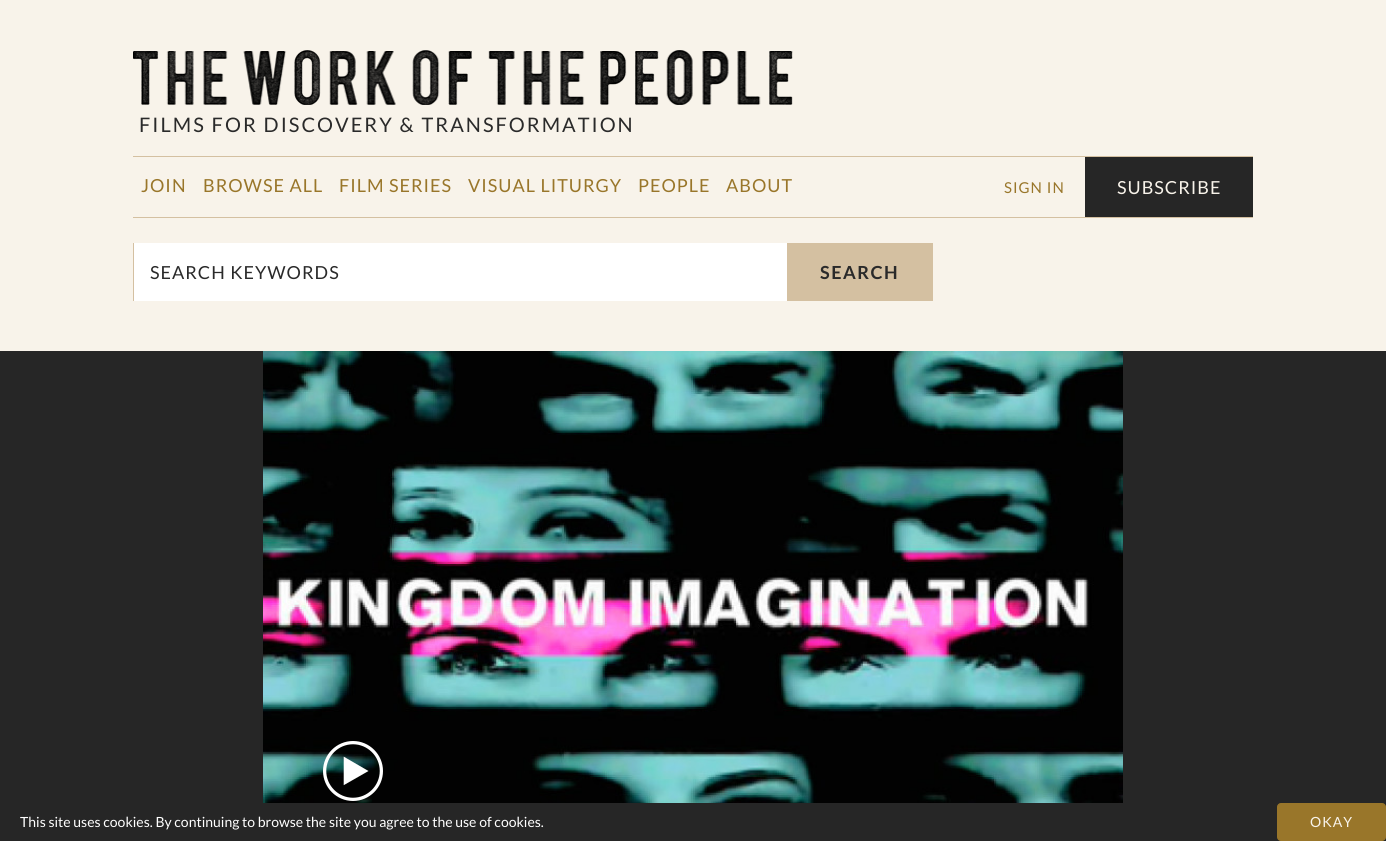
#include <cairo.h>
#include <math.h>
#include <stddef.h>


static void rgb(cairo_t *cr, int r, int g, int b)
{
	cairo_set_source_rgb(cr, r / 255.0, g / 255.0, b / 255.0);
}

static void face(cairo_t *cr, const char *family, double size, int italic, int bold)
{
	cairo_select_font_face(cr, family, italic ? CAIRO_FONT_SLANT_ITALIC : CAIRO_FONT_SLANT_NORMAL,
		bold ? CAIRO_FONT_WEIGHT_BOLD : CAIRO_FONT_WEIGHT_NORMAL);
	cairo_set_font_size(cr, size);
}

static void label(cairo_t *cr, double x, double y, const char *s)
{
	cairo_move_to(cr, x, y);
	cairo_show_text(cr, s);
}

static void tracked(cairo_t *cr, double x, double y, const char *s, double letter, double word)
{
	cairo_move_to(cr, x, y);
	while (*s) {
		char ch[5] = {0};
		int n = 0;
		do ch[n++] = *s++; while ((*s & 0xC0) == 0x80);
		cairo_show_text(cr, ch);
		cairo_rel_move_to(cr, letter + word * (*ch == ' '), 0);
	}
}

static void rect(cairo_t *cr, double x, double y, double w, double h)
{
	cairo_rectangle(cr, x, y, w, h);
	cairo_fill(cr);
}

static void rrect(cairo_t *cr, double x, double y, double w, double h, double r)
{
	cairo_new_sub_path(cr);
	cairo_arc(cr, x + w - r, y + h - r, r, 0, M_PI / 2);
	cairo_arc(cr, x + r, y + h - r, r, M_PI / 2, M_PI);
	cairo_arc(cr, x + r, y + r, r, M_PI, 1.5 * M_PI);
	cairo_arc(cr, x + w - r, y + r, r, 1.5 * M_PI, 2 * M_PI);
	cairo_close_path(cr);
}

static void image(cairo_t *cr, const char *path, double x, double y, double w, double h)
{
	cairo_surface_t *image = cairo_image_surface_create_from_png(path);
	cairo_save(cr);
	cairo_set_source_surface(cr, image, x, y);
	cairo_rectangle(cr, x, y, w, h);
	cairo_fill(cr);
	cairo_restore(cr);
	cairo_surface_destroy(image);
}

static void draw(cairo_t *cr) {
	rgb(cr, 248, 243, 234);
	cairo_paint(cr);
	image(cr, "image0.png", 133, 50, 660, 55);
	face(cr, "Lato", 20, 0, 0);
	rgb(cr, 42, 42, 42);
	tracked(cr, 139, 132, "FILMS FOR DISCOVERY & TRANSFORMATION", 2, 0);
	rgb(cr, 212, 192, 161);
	rect(cr, 133, 156, 1120, 1);
	rect(cr, 133, 217, 1120, 1);
	face(cr, "Lato", 18, 0, 0);
	rgb(cr, 153, 118, 42);
	tracked(cr, 141, 192, "JOIN", 1, 0);
	tracked(cr, 203, 192, "BROWSE ALL", 1, 0);
	tracked(cr, 339, 192, "FILM SERIES", 1, 0);
	tracked(cr, 468, 192, "VISUAL LITURGY", 1, 0);
	tracked(cr, 638, 192, "PEOPLE", 1, 0);
	tracked(cr, 726, 192, "ABOUT", 1, 0);
	face(cr, "Lato", 15, 0, 0);
	tracked(cr, 1004, 193, "SIGN IN", 1, 0);
	rgb(cr, 38, 38, 38);
	rect(cr, 1085, 157, 168, 60);
	face(cr, "Lato", 18, 0, 0);
	rgb(cr, 248, 243, 234);
	tracked(cr, 1117, 194, "SUBSCRIBE", 1, 0);
	rgb(cr, 255, 255, 255);
	rect(cr, 134, 243, 653, 58);
	rgb(cr, 212, 192, 161);
	rect(cr, 133, 243, 1, 58);
	rgb(cr, 42, 42, 42);
	tracked(cr, 150, 279, "SEARCH KEYWORDS", 1, 0);
	rgb(cr, 212, 192, 161);
	rect(cr, 787, 243, 146, 58);
	face(cr, "Lato", 18, 0, 1);
	rgb(cr, 42, 42, 42);
	tracked(cr, 820, 279, "SEARCH", 1.5, 0);
	rgb(cr, 38, 38, 38);
	rect(cr, 0, 351, 1386, 490);
	image(cr, "image1.png", 263, 351, 860, 452);
	image(cr, "image2.png", 323, 741, 60, 60);
	face(cr, "Lato", 14, 0, 0);
	rgb(cr, 255, 255, 255);
	label(cr, 20, 827, "This site uses cookies. By continuing to browse the site you agree to the use of cookies.");
	rgb(cr, 153, 118, 42);
	rrect(cr, 1277.5, 803.5, 108, 37, 3.5);
	cairo_fill_preserve(cr);
	cairo_set_line_width(cr, 1);
	cairo_stroke(cr);
	rgb(cr, 248, 243, 234);
	tracked(cr, 1310, 827, "OKAY", 1, 0);
}

int main(void) {
	cairo_surface_t *surface = cairo_image_surface_create(CAIRO_FORMAT_RGB24, 1386, 841);
	cairo_t *cr = cairo_create(surface);
	cairo_font_options_t *options = cairo_font_options_create();
	cairo_font_options_set_hint_metrics(options, CAIRO_HINT_METRICS_OFF);
	cairo_font_options_set_hint_style(options, CAIRO_HINT_STYLE_NONE);
	cairo_set_font_options(cr, options);
	cairo_set_miter_limit(cr, 4);
	draw(cr);
	cairo_surface_write_to_png(surface, "render.png");
	cairo_font_options_destroy(options);
	cairo_destroy(cr);
	cairo_surface_destroy(surface);
	return 0;
}
